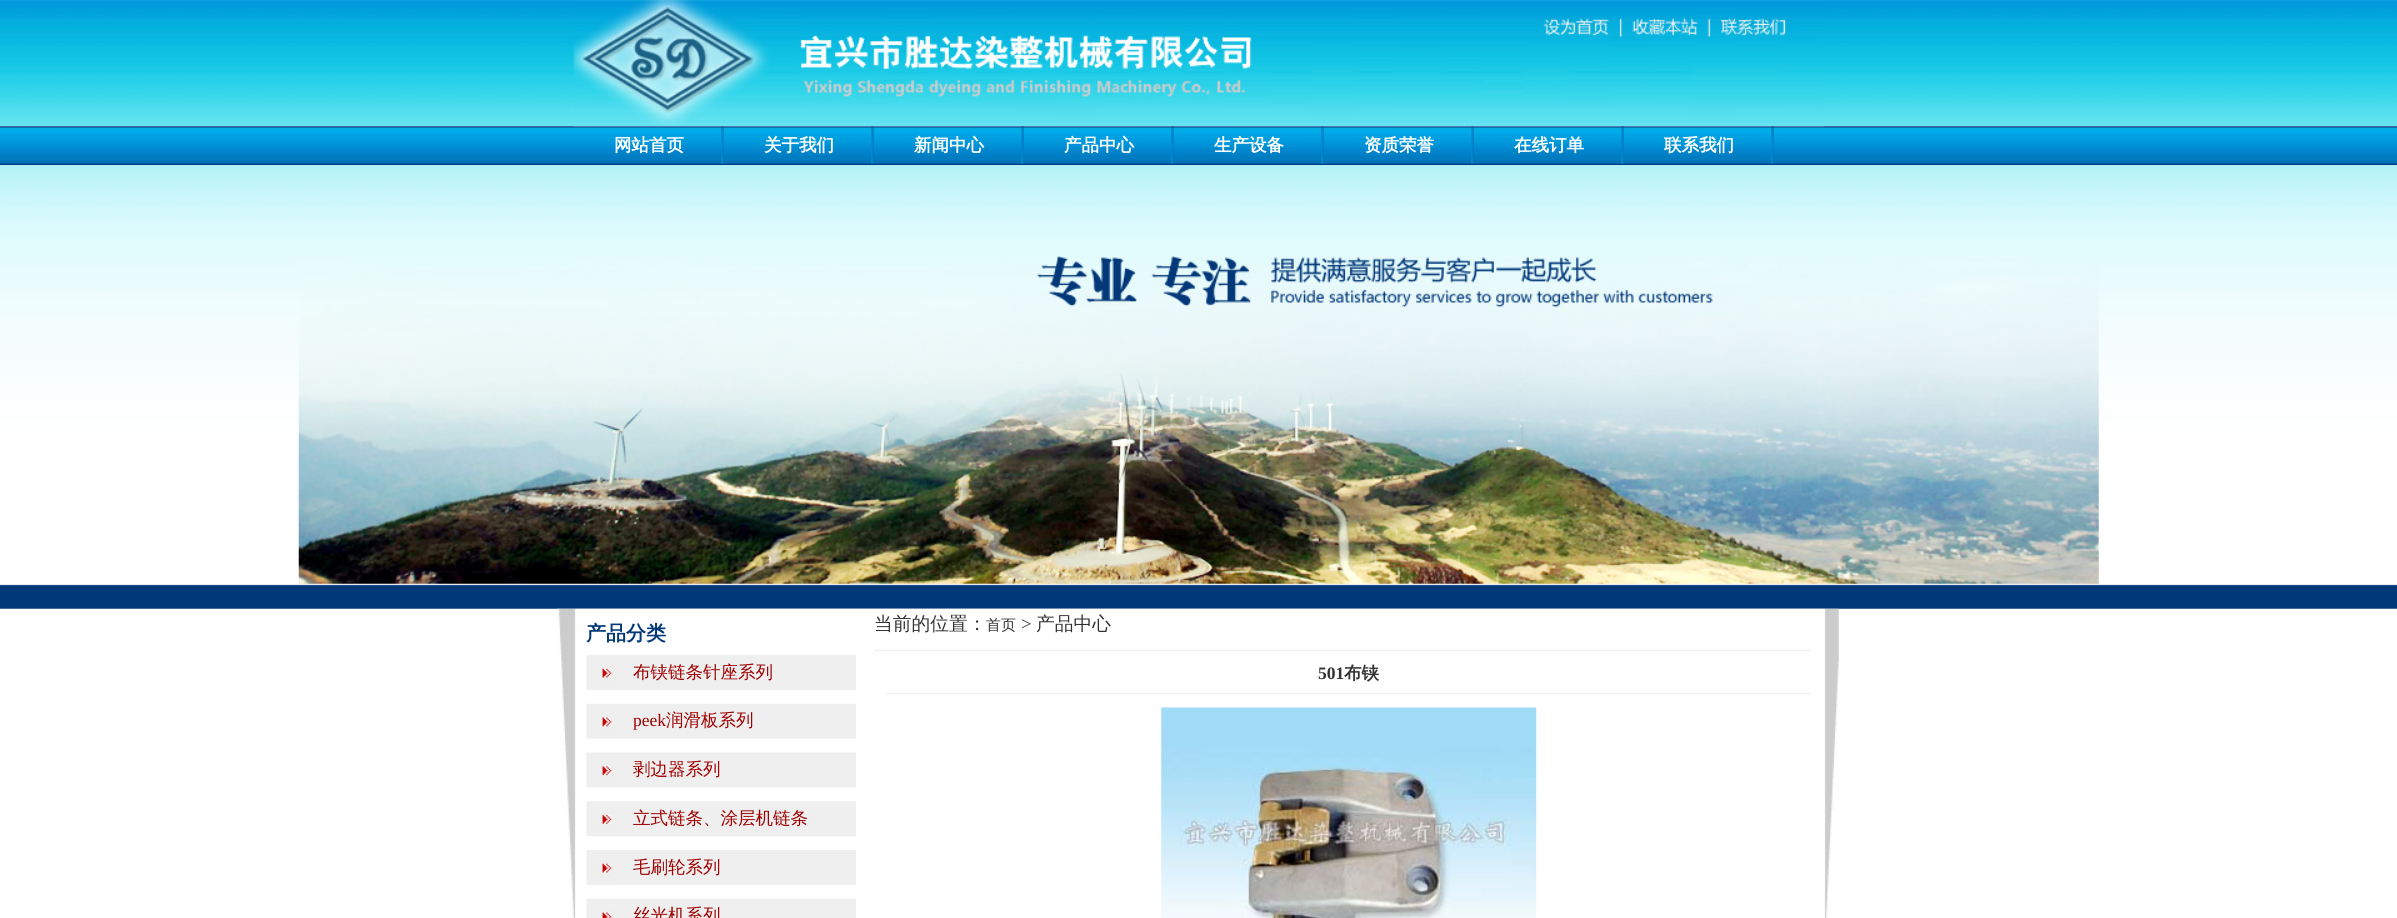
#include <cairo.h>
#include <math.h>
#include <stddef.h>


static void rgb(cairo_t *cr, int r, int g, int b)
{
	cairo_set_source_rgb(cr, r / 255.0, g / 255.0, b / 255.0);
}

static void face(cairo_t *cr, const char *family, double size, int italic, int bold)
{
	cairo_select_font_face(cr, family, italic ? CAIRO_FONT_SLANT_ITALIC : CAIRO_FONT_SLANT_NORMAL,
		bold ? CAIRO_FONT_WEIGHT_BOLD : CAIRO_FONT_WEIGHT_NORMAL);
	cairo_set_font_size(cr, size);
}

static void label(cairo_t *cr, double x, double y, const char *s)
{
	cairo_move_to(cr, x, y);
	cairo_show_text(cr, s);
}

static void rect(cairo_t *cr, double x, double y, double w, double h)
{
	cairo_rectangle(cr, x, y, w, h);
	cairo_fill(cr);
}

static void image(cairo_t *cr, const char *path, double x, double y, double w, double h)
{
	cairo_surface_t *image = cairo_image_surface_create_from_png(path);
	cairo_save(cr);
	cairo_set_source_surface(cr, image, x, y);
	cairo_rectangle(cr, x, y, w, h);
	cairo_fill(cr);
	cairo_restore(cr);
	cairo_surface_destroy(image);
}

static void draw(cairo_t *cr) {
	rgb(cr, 255, 255, 255);
	cairo_paint(cr);
	image(cr, "image0.png", 0, 0, 2397, 127);
	image(cr, "image2.png", 0, 126, 2397, 39);
	image(cr, "image3.png", 721, 126, 3, 38);
	image(cr, "image3.png", 871, 126, 3, 38);
	image(cr, "image3.png", 1021, 126, 3, 38);
	image(cr, "image3.png", 1171, 126, 3, 38);
	image(cr, "image3.png", 1321, 126, 3, 38);
	image(cr, "image3.png", 1471, 126, 3, 38);
	image(cr, "image3.png", 1621, 126, 3, 38);
	image(cr, "image3.png", 1771, 126, 3, 38);
	image(cr, "image1.png", 573, 0, 1251, 127);
	face(cr, "WenQuanYi Zen Hei", 17.5, 0, 1);
	rgb(cr, 255, 255, 255);
	label(cr, 614, 151, "网站首页");
	label(cr, 764, 151, "关于我们");
	label(cr, 914, 151, "新闻中心");
	label(cr, 1064, 151, "产品中心");
	label(cr, 1214, 151, "生产设备");
	label(cr, 1364, 151, "资质荣誉");
	label(cr, 1514, 151, "在线订单");
	label(cr, 1664, 151, "联系我们");
	image(cr, "image4.png", 0, 165, 2397, 444);
	image(cr, "image5.png", 298, 256, 1801, 328);
	image(cr, "image6.png", 557, 608, 1282, 310);
	face(cr, "WenQuanYi Zen Hei", 20, 0, 1);
	rgb(cr, 1, 56, 121);
	label(cr, 586, 640, "产品分类");
	image(cr, "image7.png", 586, 655, 270, 35);
	face(cr, "WenQuanYi Zen Hei Medium", 17.5, 0, 0);
	rgb(cr, 159, 0, 0);
	label(cr, 633, 678, "布铗链条针座系列");
	image(cr, "image8.png", 586, 703, 270, 36);
	face(cr, "Liberation Serif", 17.5, 0, 0);
	label(cr, 633, 726, "peek");
	face(cr, "WenQuanYi Zen Hei Medium", 17.5, 0, 0);
	label(cr, 666, 726, "润滑板系列");
	image(cr, "image9.png", 586, 752, 270, 36);
	label(cr, 633, 775, "剥边器系列");
	image(cr, "image10.png", 586, 801, 270, 36);
	label(cr, 633, 824, "立式链条、涂层机链条");
	image(cr, "image7.png", 586, 850, 270, 35);
	label(cr, 633, 873, "毛刷轮系列");
	image(cr, "image11.png", 586, 898, 270, 20);
	label(cr, 633, 921, "丝光机系列");
	rgb(cr, 239, 239, 239);
	rect(cr, 874, 650, 937, 1);
	face(cr, "WenQuanYi Zen Hei Medium", 18.75, 0, 0);
	rgb(cr, 51, 51, 51);
	label(cr, 874, 630, "当前的位置：");
	face(cr, "WenQuanYi Zen Hei Medium", 15, 0, 0);
	label(cr, 986, 630, "首页");
	face(cr, "Liberation Serif", 18.75, 0, 0);
	label(cr, 1021, 630, ">");
	face(cr, "WenQuanYi Zen Hei Medium", 18.75, 0, 0);
	label(cr, 1036, 630, "产品中心");
	rgb(cr, 239, 239, 239);
	rect(cr, 886, 693, 925, 1);
	face(cr, "Liberation Serif", 17.5, 0, 1);
	rgb(cr, 51, 51, 51);
	label(cr, 1318, 679, "501");
	face(cr, "WenQuanYi Zen Hei", 17.5, 0, 1);
	label(cr, 1344, 679, "布铗");
	image(cr, "image12.png", 1161, 707, 376, 211);
}

int main(void) {
	cairo_surface_t *surface = cairo_image_surface_create(CAIRO_FORMAT_RGB24, 2397, 918);
	cairo_t *cr = cairo_create(surface);
	cairo_font_options_t *options = cairo_font_options_create();
	cairo_font_options_set_hint_metrics(options, CAIRO_HINT_METRICS_OFF);
	cairo_font_options_set_hint_style(options, CAIRO_HINT_STYLE_NONE);
	cairo_set_font_options(cr, options);
	cairo_set_miter_limit(cr, 4);
	draw(cr);
	cairo_surface_write_to_png(surface, "render.png");
	cairo_font_options_destroy(options);
	cairo_destroy(cr);
	cairo_surface_destroy(surface);
	return 0;
}
